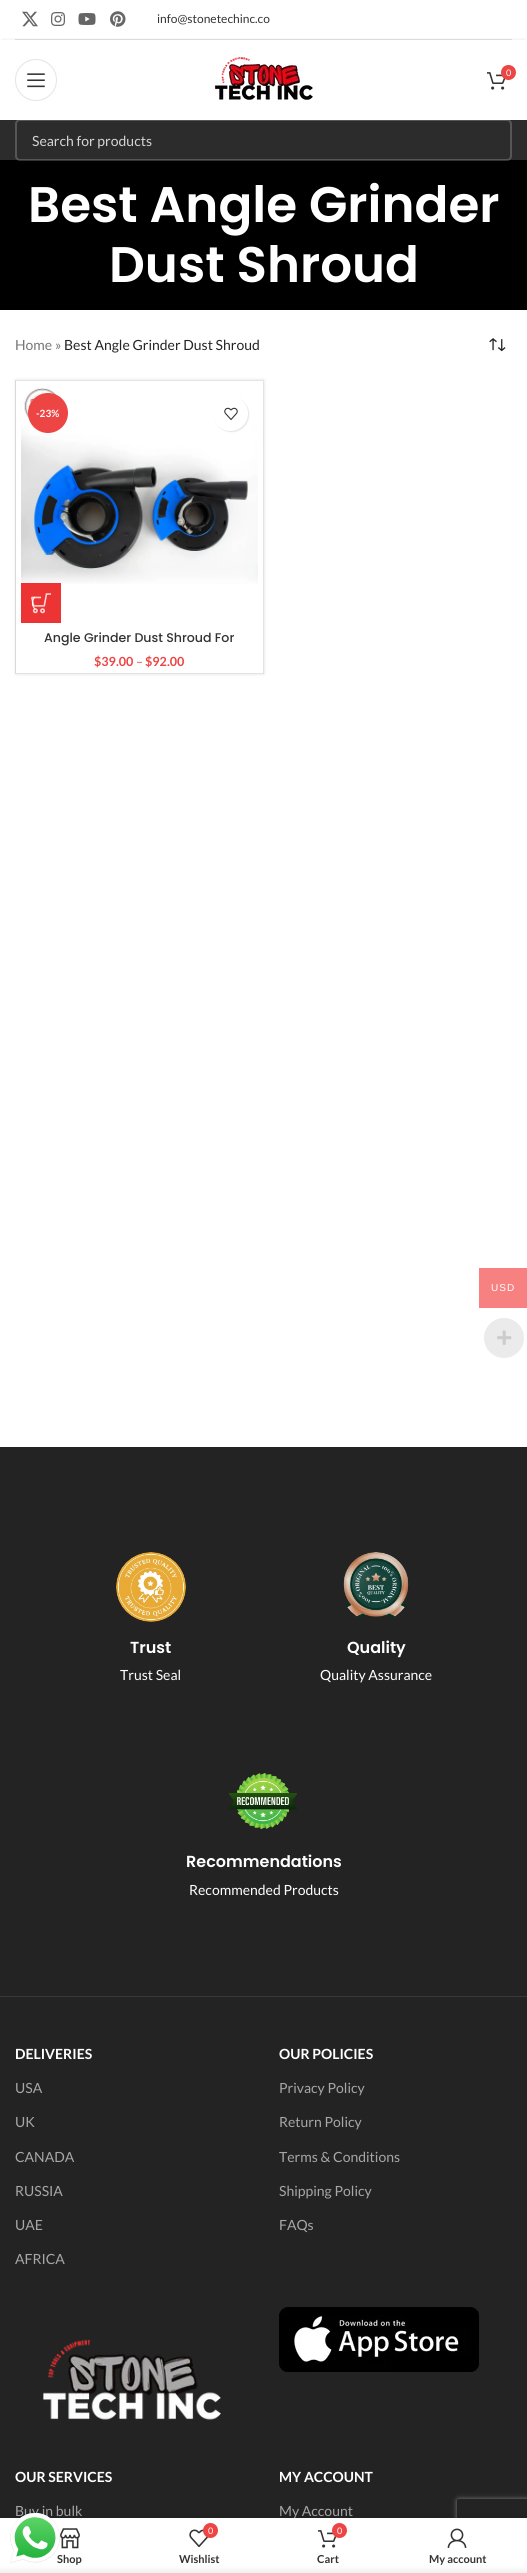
#include <cairo.h>
#include <math.h>
#include <stddef.h>


static void rgb(cairo_t *cr, int r, int g, int b)
{
	cairo_set_source_rgb(cr, r / 255.0, g / 255.0, b / 255.0);
}

static void face(cairo_t *cr, const char *family, double size, int italic, int bold)
{
	cairo_select_font_face(cr, family, italic ? CAIRO_FONT_SLANT_ITALIC : CAIRO_FONT_SLANT_NORMAL,
		bold ? CAIRO_FONT_WEIGHT_BOLD : CAIRO_FONT_WEIGHT_NORMAL);
	cairo_set_font_size(cr, size);
}

static void label(cairo_t *cr, double x, double y, const char *s)
{
	cairo_move_to(cr, x, y);
	cairo_show_text(cr, s);
}

static void tracked(cairo_t *cr, double x, double y, const char *s, double letter, double word)
{
	cairo_move_to(cr, x, y);
	while (*s) {
		char ch[5] = {0};
		int n = 0;
		do ch[n++] = *s++; while ((*s & 0xC0) == 0x80);
		cairo_show_text(cr, ch);
		cairo_rel_move_to(cr, letter + word * (*ch == ' '), 0);
	}
}

static void rect(cairo_t *cr, double x, double y, double w, double h)
{
	cairo_rectangle(cr, x, y, w, h);
	cairo_fill(cr);
}

static void rrect(cairo_t *cr, double x, double y, double w, double h, double r)
{
	cairo_new_sub_path(cr);
	cairo_arc(cr, x + w - r, y + h - r, r, 0, M_PI / 2);
	cairo_arc(cr, x + r, y + h - r, r, M_PI / 2, M_PI);
	cairo_arc(cr, x + r, y + r, r, M_PI, 1.5 * M_PI);
	cairo_arc(cr, x + w - r, y + r, r, 1.5 * M_PI, 2 * M_PI);
	cairo_close_path(cr);
}

static void soft_shadow(cairo_t *cr, double x, double y, double w, double h, double r, double blur, double alpha)
{
	cairo_push_group_with_content(cr, CAIRO_CONTENT_ALPHA);
	cairo_set_operator(cr, CAIRO_OPERATOR_SOURCE);
	for (int i = 15; i >= -15 && fmin(w, h) + blur * i / 3 > 0; i -= 2) {
		double e = blur * i / 6;
		cairo_set_source_rgba(cr, 0, 0, 0, alpha * erfc((i - 1) / 8.5) / 2);
		rrect(cr, x - e, y - e, w + 2 * e, h + 2 * e, fmax(0, fmin(r + e + blur * .6, fmin(w, h) / 2 + e)));
		cairo_fill(cr);
	}
	cairo_pattern_t *soft = cairo_pop_group(cr);
	cairo_mask(cr, soft);
	cairo_pattern_destroy(soft);
}

static void image(cairo_t *cr, const char *path, double x, double y, double w, double h)
{
	cairo_surface_t *image = cairo_image_surface_create_from_png(path);
	cairo_save(cr);
	cairo_set_source_surface(cr, image, x, y);
	cairo_rectangle(cr, x, y, w, h);
	cairo_fill(cr);
	cairo_restore(cr);
	cairo_surface_destroy(image);
}

static void draw(cairo_t *cr) {
	rgb(cr, 255, 255, 255);
	cairo_paint(cr);
	rgb(cr, 227, 227, 227);
	rect(cr, 15, 39, 497, 1);
	image(cr, "image0.png", 22, 11, 16, 16);
	image(cr, "image1.png", 51, 12, 14, 14);
	image(cr, "image2.png", 78, 13, 18, 12);
	image(cr, "image3.png", 110, 11, 16, 16);
	face(cr, "Lato", 12, 0, 0);
	rgb(cr, 51, 51, 51);
	label(cr, 157, 23, "info@stonetechinc.co");
	cairo_save(cr);
	cairo_rectangle(cr, 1, 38, 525, 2);
	cairo_clip(cr);
	rgb(cr, 0, 0, 0);
	soft_shadow(cr, 0, 41, 527, 80, 0, 4, 0.1);
	cairo_restore(cr);
	cairo_arc(cr, 36, 80, 20.5, 0, 2 * M_PI);
	rgb(cr, 228, 228, 228);
	cairo_set_line_width(cr, 1);
	cairo_stroke(cr);
	image(cr, "image4.png", 27, 73, 18, 15);
	image(cr, "image5.png", 214, 57, 99, 43);
	image(cr, "image6.png", 487, 72, 19, 18);
	rgb(cr, 237, 68, 68);
	cairo_arc(cr, 508.5, 72.5, 7.5, 0, 2 * M_PI);
	cairo_fill(cr);
	face(cr, "Lato", 9, 0, 0);
	rgb(cr, 255, 255, 255);
	label(cr, 506, 76, "0");
	rgb(cr, 44, 44, 44);
	rect(cr, 0, 120, 527, 40);
	rgb(cr, 0, 0, 0);
	rect(cr, 0, 160, 527, 150);
	rrect(cr, 16, 120, 495, 40, 4);
	cairo_set_source_rgba(cr, 1, 1, 1, 0.2);
	cairo_set_line_width(cr, 2);
	cairo_stroke(cr);
	face(cr, "Lato", 14, 0, 0);
	rgb(cr, 213, 213, 213);
	label(cr, 32, 146, "Search for products");
	face(cr, "Poppins SemiBold", 50, 0, 0);
	rgb(cr, 255, 255, 255);
	label(cr, 28, 222, "Best Angle Grinder");
	label(cr, 109, 282, "Dust Shroud");
	face(cr, "Lato", 14, 0, 0);
	rgb(cr, 118, 118, 118);
	label(cr, 15, 350, "Home »");
	rgb(cr, 36, 36, 36);
	label(cr, 64, 350, "Best Angle Grinder Dust Shroud");
	image(cr, "image7.png", 489, 338, 17, 14);
	rgb(cr, 228, 228, 228);
	rect(cr, 15, 380, 1, 294);
	cairo_save(cr);
	cairo_set_fill_rule(cr, CAIRO_FILL_RULE_EVEN_ODD);
	cairo_new_path(cr);
	cairo_move_to(cr, 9, 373);
	cairo_line_to(cr, 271, 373);
	cairo_line_to(cr, 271, 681);
	cairo_line_to(cr, 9, 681);
	cairo_close_path(cr);
	cairo_move_to(cr, 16, 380);
	cairo_line_to(cr, 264, 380);
	cairo_line_to(cr, 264, 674);
	cairo_line_to(cr, 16, 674);
	cairo_close_path(cr);
	cairo_clip(cr);
	rgb(cr, 0, 0, 0);
	soft_shadow(cr, 16, 380, 248, 294, 0, 2, 0.12);
	cairo_restore(cr);
	cairo_new_path(cr);
	cairo_move_to(cr, 16, 380);
	cairo_line_to(cr, 264, 380);
	cairo_line_to(cr, 263, 381);
	cairo_line_to(cr, 16, 381);
	cairo_close_path(cr);
	cairo_fill(cr);
	cairo_set_source_rgba(cr, 0, 0, 0, 0.11);
	cairo_new_path(cr);
	cairo_move_to(cr, 264, 380);
	cairo_line_to(cr, 264, 674);
	cairo_line_to(cr, 263, 673);
	cairo_line_to(cr, 263, 381);
	cairo_close_path(cr);
	cairo_fill(cr);
	cairo_new_path(cr);
	cairo_move_to(cr, 264, 674);
	cairo_line_to(cr, 16, 674);
	cairo_line_to(cr, 16, 673);
	cairo_line_to(cr, 263, 673);
	cairo_close_path(cr);
	cairo_fill(cr);
	image(cr, "image8.png", 21, 388, 237, 196);
	rgb(cr, 237, 68, 68);
	cairo_arc(cr, 48, 413, 20, 0, 2 * M_PI);
	cairo_fill(cr);
	face(cr, "Lato", 10, 0, 1);
	rgb(cr, 255, 255, 255);
	label(cr, 36, 417, "-23%");
	rgb(cr, 0, 0, 0);
	soft_shadow(cr, 214, 397, 35, 35, 17.5, 0.5, 0.1);
	rgb(cr, 255, 255, 255);
	cairo_arc(cr, 230.5, 413.5, 17.5, 0, 2 * M_PI);
	cairo_fill(cr);
	image(cr, "image9.png", 224, 407, 14, 13);
	cairo_set_source_rgba(cr, 0.91, 0.008, 0.008, 0.8);
	rect(cr, 21, 583, 40, 40);
	image(cr, "image10.png", 31, 593, 20, 21);
	cairo_new_path(cr);
	cairo_move_to(cr, 35, 609);
	cairo_curve_to(cr, 31.5, 605.5, 31.5, 600.5, 35, 597);
	rgb(cr, 255, 255, 255);
	cairo_set_line_width(cr, 1);
	cairo_stroke(cr);
	face(cr, "Poppins Medium", 12.6, 0, 0);
	rgb(cr, 51, 51, 51);
	label(cr, 44, 642, "Angle Grinder Dust Shroud For");
	face(cr, "Lato", 12.6, 0, 1);
	rgb(cr, 237, 68, 68);
	label(cr, 94, 666, "$39.00");
	face(cr, "Lato", 12.6, 0, 0);
	label(cr, 136, 666, "–");
	face(cr, "Lato", 12.6, 0, 1);
	label(cr, 145, 666, "$92.00");
	rgb(cr, 35, 35, 35);
	rect(cr, 0, 1447, 527, 1071);
	rgb(cr, 57, 57, 57);
	rect(cr, 0, 1996, 527, 1);
	image(cr, "image11.png", 116, 1552, 70, 70);
	face(cr, "Poppins SemiBold", 16, 0, 0);
	rgb(cr, 255, 255, 255);
	label(cr, 130, 1653, "Trust");
	face(cr, "Lato", 14, 0, 0);
	label(cr, 120, 1680, "Trust Seal");
	image(cr, "image12.png", 343, 1552, 66, 66);
	face(cr, "Poppins SemiBold", 16, 0, 0);
	label(cr, 347, 1653, "Quality");
	face(cr, "Lato", 14, 0, 0);
	label(cr, 320, 1680, "Quality Assurance");
	image(cr, "image13.png", 229, 1773, 68, 56);
	face(cr, "Poppins SemiBold", 16, 0, 0);
	label(cr, 186, 1867, "Recommendations");
	face(cr, "Lato", 14, 0, 0);
	label(cr, 189, 1895, "Recommended Products");
	face(cr, "Lato", 14, 0, 1);
	label(cr, 15, 2059, "DELIVERIES");
	face(cr, "Lato", 14, 0, 0);
	rgb(cr, 167, 167, 167);
	label(cr, 15, 2093, "USA");
	label(cr, 15, 2127, "UK");
	label(cr, 15, 2162, "CANADA");
	label(cr, 15, 2196, "RUSSIA");
	label(cr, 15, 2230, "UAE");
	label(cr, 15, 2264, "AFRICA");
	image(cr, "image14.png", 43, 2339, 178, 81);
	face(cr, "Lato", 14, 0, 1);
	rgb(cr, 255, 255, 255);
	label(cr, 279, 2059, "OUR POLICIES");
	face(cr, "Lato", 14, 0, 0);
	rgb(cr, 167, 167, 167);
	label(cr, 279, 2093, "Privacy Policy");
	label(cr, 279, 2127, "Return Policy");
	label(cr, 279, 2162, "Terms & Conditions");
	label(cr, 279, 2196, "Shipping Policy");
	label(cr, 279, 2230, "FAQs");
	image(cr, "image15.png", 279, 2307, 200, 65);
	face(cr, "Lato", 14, 0, 1);
	rgb(cr, 255, 255, 255);
	label(cr, 15, 2482, "OUR SERVICES");
	face(cr, "Lato", 14, 0, 0);
	rgb(cr, 167, 167, 167);
	label(cr, 15, 2516, "Buy in bulk");
	face(cr, "Lato", 14, 0, 1);
	rgb(cr, 255, 255, 255);
	label(cr, 279, 2482, "MY ACCOUNT");
	face(cr, "Lato", 14, 0, 0);
	rgb(cr, 167, 167, 167);
	label(cr, 279, 2516, "My Account");
	rgb(cr, 247, 128, 128);
	rect(cr, 479, 1268, 48, 40);
	face(cr, "Liberation Sans", 10, 0, 0);
	rgb(cr, 255, 255, 255);
	tracked(cr, 491, 1291, "USD", 1, 0);
	rgb(cr, 235, 235, 235);
	cairo_new_path(cr);
	cairo_arc(cr, 504, 1338, 20, 0, 2 * M_PI);
	cairo_fill(cr);
	face(cr, "Liberation Sans", 28, 0, 1);
	rgb(cr, 204, 204, 204);
	label(cr, 496, 1347, "+");
	rgb(cr, 0, 0, 0);
	soft_shadow(cr, 0, 2518, 527, 55, 0, 4.5, 0.12);
	cairo_save(cr);
	cairo_set_fill_rule(cr, CAIRO_FILL_RULE_EVEN_ODD);
	cairo_new_path(cr);
	cairo_move_to(cr, 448, 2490);
	cairo_line_to(cr, 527, 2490);
	cairo_line_to(cr, 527, 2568);
	cairo_line_to(cr, 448, 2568);
	cairo_close_path(cr);
	cairo_move_to(cr, 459, 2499);
	cairo_line_to(cr, 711, 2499);
	cairo_curve_to(cr, 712, 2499, 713, 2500, 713, 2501);
	cairo_line_to(cr, 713, 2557);
	cairo_curve_to(cr, 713, 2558, 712, 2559, 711, 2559);
	cairo_line_to(cr, 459, 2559);
	cairo_curve_to(cr, 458, 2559, 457, 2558, 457, 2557);
	cairo_line_to(cr, 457, 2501);
	cairo_curve_to(cr, 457, 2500, 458, 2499, 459, 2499);
	cairo_close_path(cr);
	cairo_clip(cr);
	rgb(cr, 128, 128, 128);
	soft_shadow(cr, 457, 2499, 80, 60, 2, 2.5, 1);
	cairo_restore(cr);
	rgb(cr, 255, 255, 255);
	rect(cr, 0, 2518, 527, 55);
	face(cr, "Lato", 11, 0, 1);
	rgb(cr, 51, 51, 51);
	label(cr, 57, 2563, "Shop");
	rgb(cr, 0, 0, 0);
	soft_shadow(cr, 0, 2573, 527, 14, 0, 4.5, 0.14);
	image(cr, "image16.png", 10, 2513, 50, 50);
	image(cr, "image17.png", 60, 2528, 20, 21);
	image(cr, "image18.png", 189, 2529, 20, 18);
	rgb(cr, 237, 68, 68);
	cairo_arc(cr, 210.5, 2530.5, 7.5, 0, 2 * M_PI);
	cairo_fill(cr);
	face(cr, "Lato", 9, 0, 0);
	rgb(cr, 255, 255, 255);
	label(cr, 208, 2534, "0");
	face(cr, "Lato", 11, 0, 1);
	rgb(cr, 51, 51, 51);
	label(cr, 179, 2563, "Wishlist");
	image(cr, "image6.png", 318, 2530, 19, 18);
	rgb(cr, 237, 68, 68);
	cairo_arc(cr, 339.5, 2530.5, 7.5, 0, 2 * M_PI);
	cairo_fill(cr);
	face(cr, "Lato", 9, 0, 0);
	rgb(cr, 255, 255, 255);
	label(cr, 337, 2534, "0");
	face(cr, "Lato", 11, 0, 1);
	rgb(cr, 51, 51, 51);
	label(cr, 317, 2563, "Cart");
	image(cr, "image19.png", 447, 2528, 20, 20);
	label(cr, 429, 2563, "My account");
}

int main(void) {
	cairo_surface_t *surface = cairo_image_surface_create(CAIRO_FORMAT_RGB24, 527, 2573);
	cairo_t *cr = cairo_create(surface);
	cairo_font_options_t *options = cairo_font_options_create();
	cairo_font_options_set_hint_metrics(options, CAIRO_HINT_METRICS_OFF);
	cairo_font_options_set_hint_style(options, CAIRO_HINT_STYLE_NONE);
	cairo_set_font_options(cr, options);
	cairo_set_miter_limit(cr, 4);
	draw(cr);
	cairo_surface_write_to_png(surface, "render.png");
	cairo_font_options_destroy(options);
	cairo_destroy(cr);
	cairo_surface_destroy(surface);
	return 0;
}
